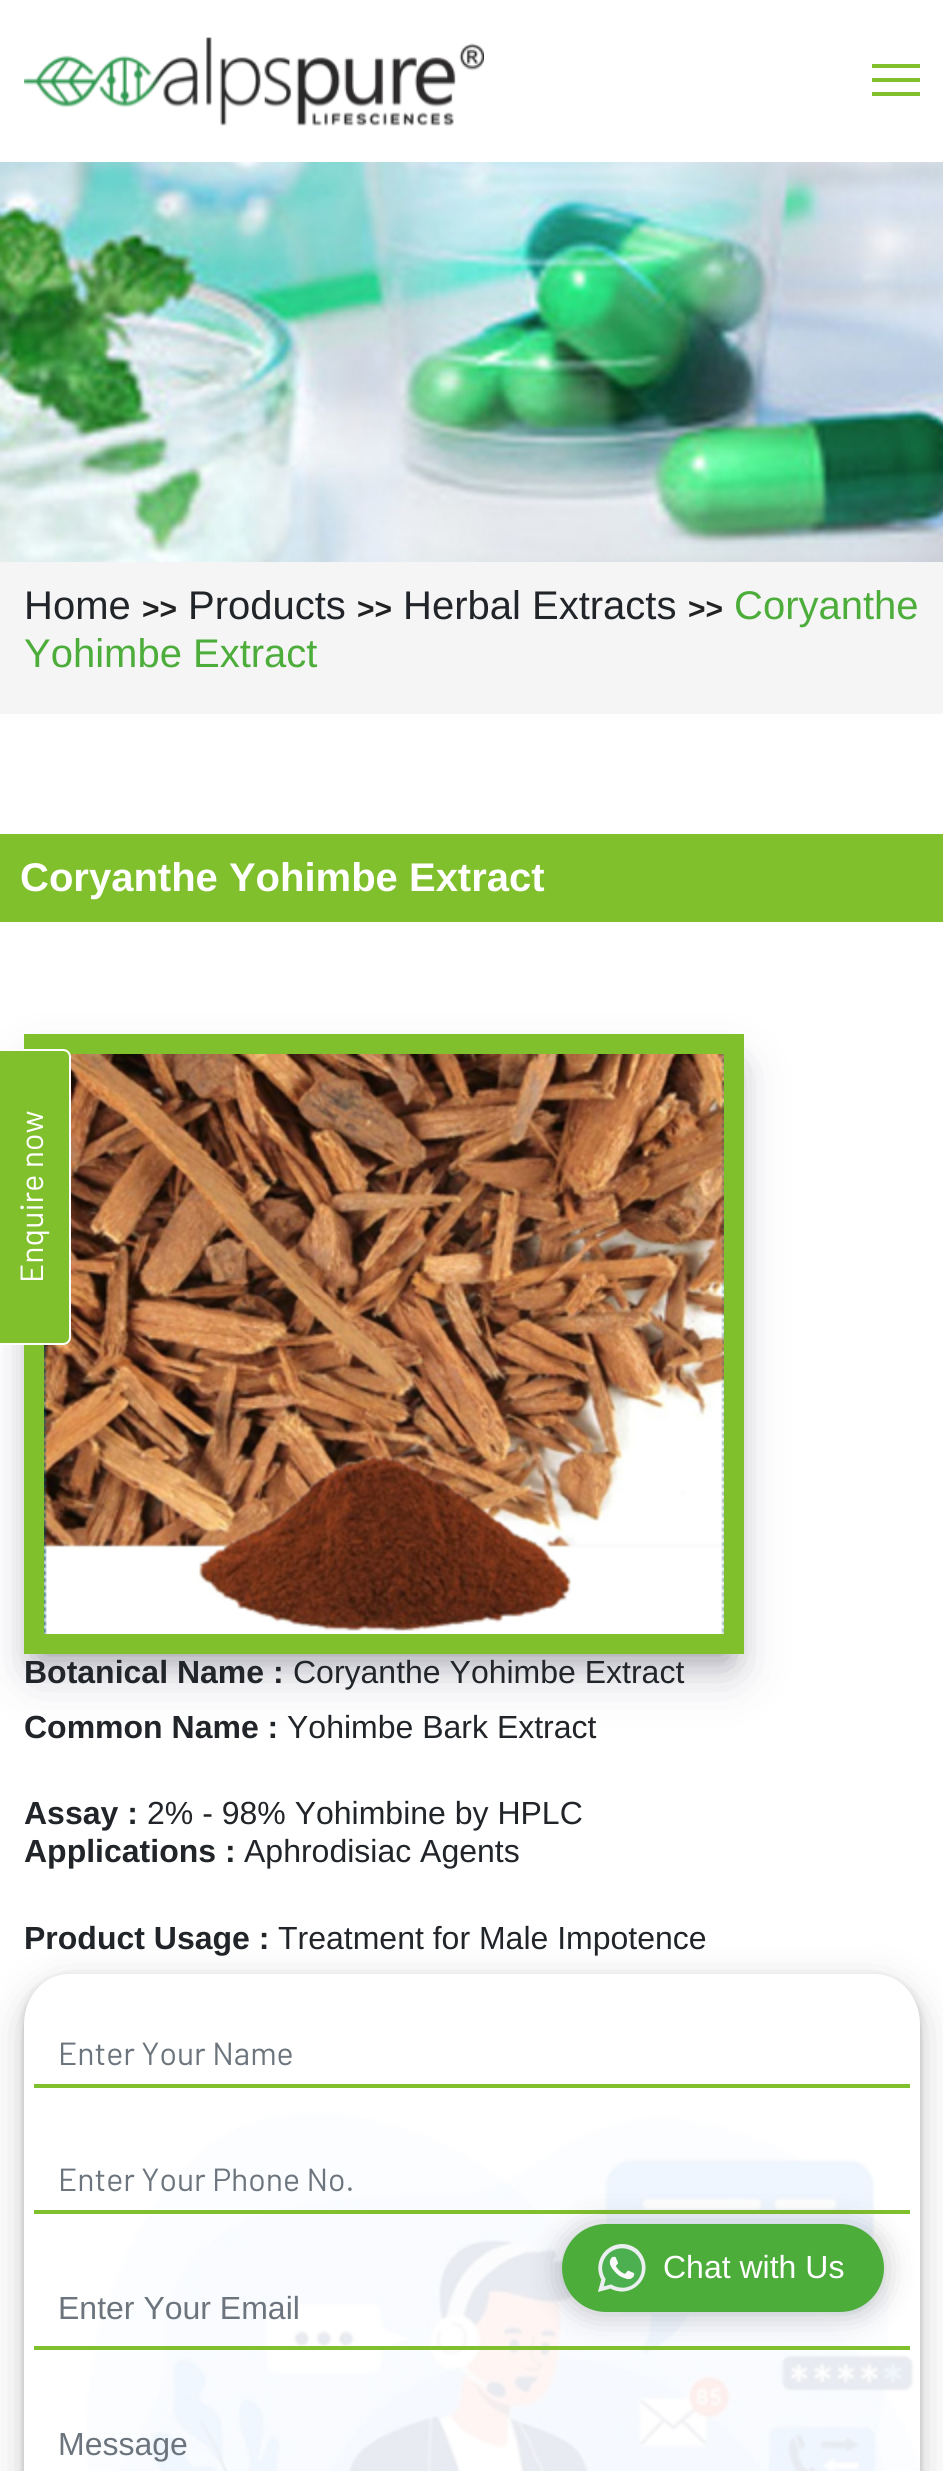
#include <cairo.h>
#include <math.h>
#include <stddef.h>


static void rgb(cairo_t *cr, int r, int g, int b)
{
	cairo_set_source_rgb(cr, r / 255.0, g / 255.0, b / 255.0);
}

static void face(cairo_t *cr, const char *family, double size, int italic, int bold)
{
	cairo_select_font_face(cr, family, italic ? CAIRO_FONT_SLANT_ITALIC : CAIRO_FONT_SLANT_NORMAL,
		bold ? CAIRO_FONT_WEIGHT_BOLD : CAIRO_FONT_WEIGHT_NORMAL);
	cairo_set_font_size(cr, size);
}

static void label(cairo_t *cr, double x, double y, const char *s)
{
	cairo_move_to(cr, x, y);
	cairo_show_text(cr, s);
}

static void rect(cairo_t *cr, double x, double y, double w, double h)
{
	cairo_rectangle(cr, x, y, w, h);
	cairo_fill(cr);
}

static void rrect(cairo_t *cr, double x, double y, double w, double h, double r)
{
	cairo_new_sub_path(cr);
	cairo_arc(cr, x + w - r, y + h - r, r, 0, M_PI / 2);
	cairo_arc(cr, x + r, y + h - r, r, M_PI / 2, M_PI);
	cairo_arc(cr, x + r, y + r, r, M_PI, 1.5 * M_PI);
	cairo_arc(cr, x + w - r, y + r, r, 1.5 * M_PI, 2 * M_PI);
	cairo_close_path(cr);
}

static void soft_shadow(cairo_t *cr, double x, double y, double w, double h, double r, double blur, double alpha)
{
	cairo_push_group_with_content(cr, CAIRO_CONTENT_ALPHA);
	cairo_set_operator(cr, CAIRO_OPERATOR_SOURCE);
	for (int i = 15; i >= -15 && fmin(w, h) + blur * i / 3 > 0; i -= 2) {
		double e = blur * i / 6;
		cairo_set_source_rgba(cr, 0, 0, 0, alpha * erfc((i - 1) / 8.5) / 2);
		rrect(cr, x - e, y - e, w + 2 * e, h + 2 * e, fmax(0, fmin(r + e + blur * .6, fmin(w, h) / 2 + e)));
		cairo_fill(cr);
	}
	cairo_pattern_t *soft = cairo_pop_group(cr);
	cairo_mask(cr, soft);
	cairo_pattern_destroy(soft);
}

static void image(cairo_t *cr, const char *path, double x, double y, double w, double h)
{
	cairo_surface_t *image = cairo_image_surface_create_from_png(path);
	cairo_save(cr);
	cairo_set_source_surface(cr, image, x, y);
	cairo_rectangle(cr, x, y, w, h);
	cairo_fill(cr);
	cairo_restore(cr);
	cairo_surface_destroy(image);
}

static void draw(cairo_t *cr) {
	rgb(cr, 255, 255, 255);
	cairo_paint(cr);
	image(cr, "image0.png", 24, 37, 460, 89);
	rgb(cr, 128, 192, 45);
	rect(cr, 872, 64, 48, 4);
	rect(cr, 872, 78, 48, 4);
	rect(cr, 872, 92, 48, 4);
	image(cr, "image1.png", 0, 162, 943, 400);
	rgb(cr, 245, 245, 245);
	rect(cr, 0, 562, 943, 152);
	face(cr, "Liberation Sans", 40, 0, 0);
	rgb(cr, 33, 37, 41);
	label(cr, 24, 619, "Home");
	face(cr, "Liberation Sans", 30, 0, 1);
	rgb(cr, 34, 34, 34);
	label(cr, 142, 619, ">>");
	face(cr, "Liberation Sans", 40, 0, 0);
	rgb(cr, 33, 37, 41);
	label(cr, 188, 619, "Products");
	face(cr, "Liberation Sans", 30, 0, 1);
	rgb(cr, 34, 34, 34);
	label(cr, 357, 619, ">>");
	face(cr, "Liberation Sans", 40, 0, 0);
	rgb(cr, 33, 37, 41);
	label(cr, 403, 619, "Herbal Extracts");
	face(cr, "Liberation Sans", 30, 0, 1);
	rgb(cr, 34, 34, 34);
	label(cr, 688, 619, ">>");
	face(cr, "Liberation Sans", 40, 0, 0);
	rgb(cr, 76, 173, 59);
	label(cr, 734, 619, "Coryanthe");
	label(cr, 24, 667, "Yohimbe Extract");
	rgb(cr, 128, 192, 45);
	rect(cr, 0, 834, 943, 88);
	face(cr, "Liberation Sans", 40, 0, 1);
	rgb(cr, 255, 255, 255);
	label(cr, 20, 891, "Coryanthe Yohimbe Extract");
	rgb(cr, 50, 50, 93);
	soft_shadow(cr, 34, 1070, 700, 600, 0, 27, 0.25);
	rgb(cr, 0, 0, 0);
	soft_shadow(cr, 40, 1066, 688, 588, 0, 16, 0.3);
	cairo_rectangle(cr, 34, 1044, 700, 600);
	rgb(cr, 128, 192, 45);
	cairo_set_line_width(cr, 20);
	cairo_stroke(cr);
	image(cr, "image2.png", 44, 1054, 680, 580);
	face(cr, "Liberation Sans", 32, 0, 1);
	rgb(cr, 33, 37, 41);
	label(cr, 24, 1683, "Botanical Name :");
	face(cr, "Liberation Sans", 32, 0, 0);
	label(cr, 293, 1683, "Coryanthe Yohimbe Extract");
	face(cr, "Liberation Sans", 32, 0, 1);
	label(cr, 24, 1738, "Common Name :");
	face(cr, "Liberation Sans", 32, 0, 0);
	label(cr, 287, 1738, "Yohimbe Bark Extract");
	face(cr, "Liberation Sans", 32, 0, 1);
	label(cr, 24, 1824, "Assay :");
	face(cr, "Liberation Sans", 32, 0, 0);
	label(cr, 147, 1824, "2% - 98% Yohimbine by HPLC");
	face(cr, "Liberation Sans", 32, 0, 1);
	label(cr, 24, 1862, "Applications :");
	face(cr, "Liberation Sans", 32, 0, 0);
	label(cr, 244, 1862, "Aphrodisiac Agents");
	face(cr, "Liberation Sans", 32, 0, 1);
	label(cr, 24, 1949, "Product Usage :");
	face(cr, "Liberation Sans", 32, 0, 0);
	label(cr, 278, 1949, "Treatment for Male Impotence");
	rgb(cr, 0, 0, 0);
	soft_shadow(cr, 24, 1986, 896, 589, 44, 20, 0.19);
	soft_shadow(cr, 24, 1978, 896, 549, 44, 4, 0.2);
	image(cr, "image3.png", 24, 1974, 896, 497);
	rgb(cr, 128, 192, 45);
	rect(cr, 34, 2084, 876, 4);
	face(cr, "Barlow", 32, 0, 0);
	rgb(cr, 108, 117, 125);
	label(cr, 58, 2065, "Enter Your Name");
	rgb(cr, 128, 192, 45);
	rect(cr, 34, 2210, 876, 4);
	rgb(cr, 108, 117, 125);
	label(cr, 58, 2191, "Enter Your Phone No.");
	rgb(cr, 128, 192, 45);
	rect(cr, 34, 2346, 876, 4);
	face(cr, "Liberation Sans", 32, 0, 0);
	rgb(cr, 108, 117, 125);
	label(cr, 58, 2319, "Enter Your Email");
	label(cr, 58, 2455, "Message");
	rgb(cr, 32, 33, 36);
	soft_shadow(cr, 562, 2226, 322, 88, 44, 15, 0.28);
	rgb(cr, 76, 173, 58);
	rrect(cr, 562, 2224, 322, 88, 44);
	cairo_fill(cr);
	image(cr, "image4.png", 598, 2244, 48, 48);
	rgb(cr, 255, 255, 255);
	label(cr, 663, 2278, "Chat with Us");
	rgb(cr, 128, 192, 45);
	cairo_new_path(cr);
	cairo_move_to(cr, -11, 1337);
	cairo_line_to(cr, -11, 1057);
	cairo_curve_to(cr, -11, 1052, -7, 1049, -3, 1049);
	cairo_line_to(cr, 63, 1049);
	cairo_curve_to(cr, 68, 1049, 71, 1052, 71, 1057);
	cairo_line_to(cr, 71, 1337);
	cairo_curve_to(cr, 71, 1342, 68, 1345, 63, 1345);
	cairo_line_to(cr, -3, 1345);
	cairo_curve_to(cr, -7, 1345, -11, 1342, -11, 1337);
	cairo_close_path(cr);
	cairo_fill(cr);
	cairo_new_path(cr);
	cairo_move_to(cr, -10, 1337);
	cairo_line_to(cr, -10, 1057);
	cairo_curve_to(cr, -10, 1053, -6.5, 1050, -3, 1050);
	cairo_line_to(cr, 63, 1050);
	cairo_curve_to(cr, 67, 1050, 70, 1053, 70, 1057);
	cairo_line_to(cr, 70, 1337);
	cairo_curve_to(cr, 70, 1341, 67, 1344, 63, 1344);
	cairo_line_to(cr, -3, 1344);
	cairo_curve_to(cr, -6.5, 1344, -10, 1341, -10, 1337);
	cairo_close_path(cr);
	rgb(cr, 255, 255, 255);
	cairo_set_line_width(cr, 2);
	cairo_stroke(cr);
	face(cr, "Barlow", 32, 0, 0);
	cairo_save(cr);
	cairo_translate(cr, 43, 1283);
	cairo_rotate(cr, -90 * M_PI / 180);
	label(cr, 0, 0, "Enquire now");
	cairo_restore(cr);
}

int main(void) {
	cairo_surface_t *surface = cairo_image_surface_create(CAIRO_FORMAT_RGB24, 943, 2471);
	cairo_t *cr = cairo_create(surface);
	cairo_font_options_t *options = cairo_font_options_create();
	cairo_font_options_set_hint_metrics(options, CAIRO_HINT_METRICS_OFF);
	cairo_font_options_set_hint_style(options, CAIRO_HINT_STYLE_NONE);
	cairo_set_font_options(cr, options);
	cairo_set_miter_limit(cr, 4);
	draw(cr);
	cairo_surface_write_to_png(surface, "render.png");
	cairo_font_options_destroy(options);
	cairo_destroy(cr);
	cairo_surface_destroy(surface);
	return 0;
}
